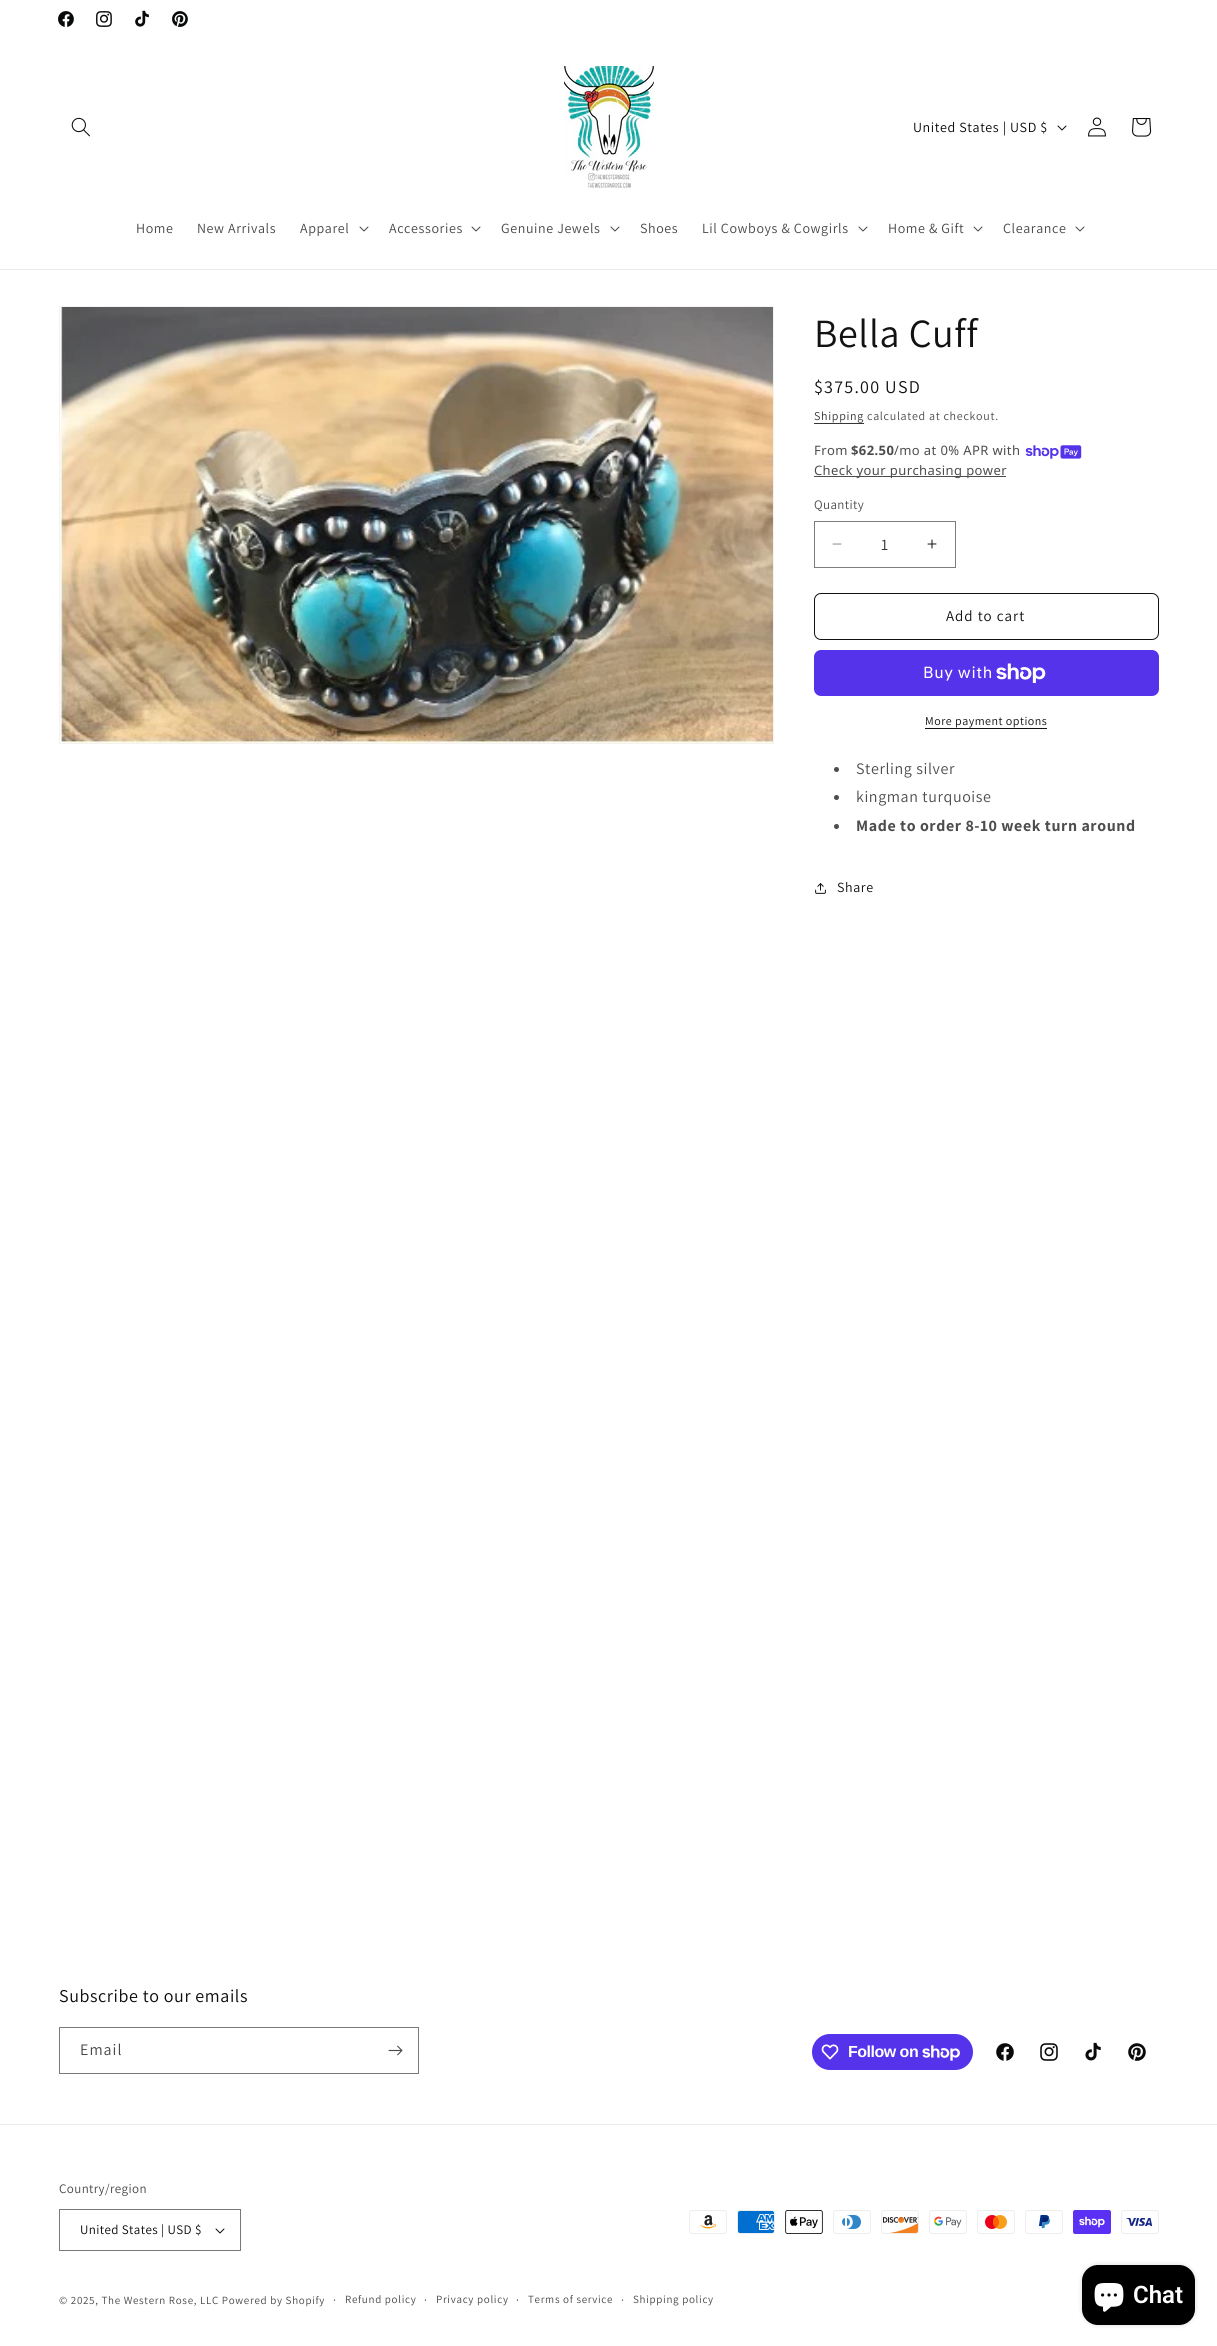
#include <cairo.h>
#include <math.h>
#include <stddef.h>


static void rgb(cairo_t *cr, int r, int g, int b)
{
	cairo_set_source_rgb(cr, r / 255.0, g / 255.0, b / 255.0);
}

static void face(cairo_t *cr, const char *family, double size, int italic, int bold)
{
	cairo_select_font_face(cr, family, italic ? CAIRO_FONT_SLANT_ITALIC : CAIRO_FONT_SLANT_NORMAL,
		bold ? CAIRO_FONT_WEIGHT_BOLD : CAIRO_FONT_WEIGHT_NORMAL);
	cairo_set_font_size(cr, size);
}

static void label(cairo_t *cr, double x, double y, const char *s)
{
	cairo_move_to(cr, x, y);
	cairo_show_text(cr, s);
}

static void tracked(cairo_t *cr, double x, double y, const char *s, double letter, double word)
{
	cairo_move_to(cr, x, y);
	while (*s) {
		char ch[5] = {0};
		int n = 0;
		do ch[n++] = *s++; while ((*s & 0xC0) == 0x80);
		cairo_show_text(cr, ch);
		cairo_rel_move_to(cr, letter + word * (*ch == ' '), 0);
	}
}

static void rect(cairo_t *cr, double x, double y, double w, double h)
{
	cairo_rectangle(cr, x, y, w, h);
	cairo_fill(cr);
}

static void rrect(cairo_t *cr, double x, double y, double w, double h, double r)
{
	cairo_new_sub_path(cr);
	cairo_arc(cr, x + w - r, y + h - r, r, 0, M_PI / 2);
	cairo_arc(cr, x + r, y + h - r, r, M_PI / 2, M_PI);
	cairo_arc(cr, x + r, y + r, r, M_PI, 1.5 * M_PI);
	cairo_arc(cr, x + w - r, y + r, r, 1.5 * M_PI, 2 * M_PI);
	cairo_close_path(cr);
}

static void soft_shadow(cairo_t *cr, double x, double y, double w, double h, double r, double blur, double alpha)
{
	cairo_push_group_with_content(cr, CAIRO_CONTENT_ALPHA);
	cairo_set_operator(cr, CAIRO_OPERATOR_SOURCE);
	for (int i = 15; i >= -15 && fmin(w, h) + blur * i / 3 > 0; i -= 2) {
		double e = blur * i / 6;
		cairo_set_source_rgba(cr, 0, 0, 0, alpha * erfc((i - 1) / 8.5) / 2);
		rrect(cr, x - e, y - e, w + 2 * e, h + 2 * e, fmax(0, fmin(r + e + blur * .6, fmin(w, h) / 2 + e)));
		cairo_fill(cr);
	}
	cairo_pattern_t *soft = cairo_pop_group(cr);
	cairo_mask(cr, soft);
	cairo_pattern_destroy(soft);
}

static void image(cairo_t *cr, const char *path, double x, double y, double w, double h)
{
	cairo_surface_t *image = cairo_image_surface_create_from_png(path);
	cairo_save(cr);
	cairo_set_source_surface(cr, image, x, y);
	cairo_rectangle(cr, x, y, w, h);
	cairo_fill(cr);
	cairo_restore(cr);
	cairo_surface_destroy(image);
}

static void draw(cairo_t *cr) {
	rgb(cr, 255, 255, 255);
	cairo_paint(cr);
	image(cr, "image0.png", 58, 11, 16, 16);
	image(cr, "image1.png", 96, 11, 16, 16);
	image(cr, "image2.png", 135, 10, 14, 17);
	image(cr, "image3.png", 172, 11, 16, 16);
	rgb(cr, 235, 235, 235);
	rect(cr, 0, 269, 1217, 1);
	image(cr, "image4.png", 71, 117, 19, 20);
	image(cr, "image5.png", 564, 66, 90, 122);
	face(cr, "Assistant", 14, 0, 0);
	rgb(cr, 9, 11, 10);
	tracked(cr, 913, 132, "United States | USD $", 0.6, 0);
	image(cr, "image6.png", 1057, 125, 10, 6);
	image(cr, "image7.png", 1088, 117, 18, 20);
	image(cr, "image8.png", 1132, 118, 20, 19);
	rgb(cr, 71, 72, 71);
	tracked(cr, 136, 233, "Home", 0.6, 0);
	tracked(cr, 197, 233, "New Arrivals", 0.6, 0);
	tracked(cr, 300, 233, "Apparel", 0.6, 0);
	image(cr, "image9.png", 359, 226, 10, 6);
	tracked(cr, 389, 233, "Accessories", 0.6, 0);
	image(cr, "image9.png", 471, 226, 10, 6);
	tracked(cr, 501, 233, "Genuine Jewels", 0.6, 0);
	image(cr, "image9.png", 610, 226, 10, 6);
	tracked(cr, 640, 233, "Shoes", 0.6, 0);
	tracked(cr, 702, 233, "Lil Cowboys & Cowgirls", 0.6, 0);
	image(cr, "image9.png", 858, 226, 10, 6);
	tracked(cr, 888, 233, "Home & Gift", 0.6, 0);
	image(cr, "image9.png", 973, 226, 10, 6);
	tracked(cr, 1003, 233, "Clearance", 0.6, 0);
	image(cr, "image9.png", 1075, 226, 10, 6);
	cairo_rectangle(cr, 59.5, 306.5, 714, 437);
	rgb(cr, 243, 243, 243);
	cairo_set_line_width(cr, 1);
	cairo_stroke(cr);
	image(cr, "image10.png", 60, 307, 713, 436);
	face(cr, "Assistant", 40, 0, 0);
	rgb(cr, 18, 18, 18);
	tracked(cr, 814, 347, "Bella Cuff", 0.6, 0);
	face(cr, "Assistant", 18, 0, 0);
	tracked(cr, 814, 393, "$375.00 USD", 1.25, 0);
	face(cr, "Assistant", 12, 0, 0);
	rgb(cr, 54, 54, 54);
	tracked(cr, 814, 420, "Shipping", 0.7, 0);
	rect(cr, 814, 423, 50, 1);
	rgb(cr, 77, 77, 77);
	tracked(cr, 867, 420, "calculated at checkout.", 0.7, 0);
	face(cr, "Noto Sans", 13, 0, 0);
	tracked(cr, 814, 455, "From", 0.4, 0);
	face(cr, "Noto Sans", 13, 0, 1);
	tracked(cr, 851, 455, "$62.50", 0.4, 0);
	face(cr, "Noto Sans", 13, 0, 0);
	tracked(cr, 894, 455, "/mo at 0% APR with", 0.4, 0);
	image(cr, "image11.png", 1025, 445, 57, 14);
	rect(cr, 814, 476, 192, 1);
	tracked(cr, 814, 475, "Check your purchasing power", 0.4, 0);
	face(cr, "Assistant", 13, 0, 0);
	tracked(cr, 814, 509, "Quantity", 0.4, 0);
	image(cr, "image12.png", 832, 543, 10, 2);
	image(cr, "image13.png", 927, 539, 10, 10);
	cairo_rectangle(cr, 814.5, 521.5, 141, 46);
	rgb(cr, 125, 125, 125);
	cairo_stroke(cr);
	face(cr, "Assistant", 16, 0, 0);
	rgb(cr, 54, 54, 54);
	label(cr, 881, 550, "1");
	rrect(cr, 814.5, 593.5, 344, 46, 6.5);
	rgb(cr, 18, 18, 18);
	cairo_stroke(cr);
	face(cr, "Assistant", 15, 0, 0);
	tracked(cr, 946, 621, "Add to cart", 1, 0);
	rgb(cr, 84, 51, 235);
	rrect(cr, 814, 650, 345, 46, 7);
	cairo_fill(cr);
	face(cr, "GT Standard", 16, 0, 0);
	rgb(cr, 255, 255, 255);
	tracked(cr, 923, 678, "Buy with", 0.6, 0);
	image(cr, "image14.png", 996, 663, 50, 20);
	face(cr, "Assistant", 12, 0, 0);
	rgb(cr, 18, 18, 18);
	tracked(cr, 925, 725, "More payment options", 0.5, 0);
	rect(cr, 925, 728, 122, 1);
	rgb(cr, 77, 77, 77);
	cairo_new_path(cr);
	cairo_arc(cr, 836.5, 769.5, 2.5, 0, 2 * M_PI);
	cairo_fill(cr);
	face(cr, "Assistant", 16, 0, 0);
	tracked(cr, 856, 774, "Sterling silver", 0.6, 0);
	cairo_new_path(cr);
	cairo_arc(cr, 836.5, 797.5, 2.5, 0, 2 * M_PI);
	cairo_fill(cr);
	tracked(cr, 856, 802, "kingman turquoise", 0.6, 0);
	cairo_new_path(cr);
	cairo_arc(cr, 836.5, 826.5, 2.5, 0, 2 * M_PI);
	cairo_fill(cr);
	face(cr, "Assistant", 16, 0, 1);
	tracked(cr, 856, 831, "Made to order 8-10 week turn around", 0.6, 0);
	image(cr, "image15.png", 815, 883, 11, 11);
	face(cr, "Assistant", 14, 0, 0);
	rgb(cr, 18, 18, 18);
	tracked(cr, 837, 892, "Share", 0.6, 0);
	face(cr, "Assistant", 18, 0, 0);
	rgb(cr, 9, 11, 10);
	tracked(cr, 59, 2002, "Subscribe to our emails", 0.6, 0);
	cairo_rectangle(cr, 59.5, 2027.5, 359, 46);
	rgb(cr, 120, 121, 120);
	cairo_stroke(cr);
	face(cr, "Assistant", 16, 0, 0);
	rgb(cr, 71, 72, 71);
	tracked(cr, 80, 2055, "Email", 1, 0);
	image(cr, "image16.png", 388, 2045, 15, 11);
	rgb(cr, 84, 51, 235);
	rrect(cr, 812, 2034, 161, 36, 18);
	cairo_fill(cr);
	image(cr, "image17.png", 821, 2044, 18, 16);
	face(cr, "Liberation Sans", 16, 0, 1);
	rgb(cr, 255, 255, 255);
	tracked(cr, 848, 2057, "Follow on", -0.5, 0);
	image(cr, "image18.png", 922, 2045, 38, 16);
	image(cr, "image19.png", 996, 2043, 18, 18);
	image(cr, "image20.png", 1040, 2043, 18, 18);
	image(cr, "image21.png", 1085, 2042, 16, 19);
	image(cr, "image22.png", 1128, 2043, 18, 18);
	rgb(cr, 235, 235, 235);
	rect(cr, 0, 2124, 1217, 1);
	face(cr, "Assistant", 13, 0, 0);
	rgb(cr, 71, 72, 71);
	tracked(cr, 59, 2193, "Country/region", 0.4, 0);
	image(cr, "image6.png", 215, 2228, 10, 6);
	cairo_rectangle(cr, 59.5, 2209.5, 181, 41);
	rgb(cr, 120, 121, 120);
	cairo_stroke(cr);
	rgb(cr, 9, 11, 10);
	tracked(cr, 80, 2234, "United States | USD $", 0.4, 0);
	image(cr, "image23.png", 689, 2210, 38, 24);
	image(cr, "image24.png", 737, 2210, 38, 24);
	image(cr, "image25.png", 785, 2210, 38, 24);
	image(cr, "image26.png", 833, 2210, 38, 24);
	image(cr, "image27.png", 881, 2210, 38, 24);
	image(cr, "image28.png", 929, 2210, 38, 24);
	image(cr, "image29.png", 977, 2210, 38, 24);
	image(cr, "image30.png", 1025, 2210, 38, 24);
	image(cr, "image31.png", 1073, 2210, 38, 24);
	image(cr, "image32.png", 1121, 2210, 38, 24);
	face(cr, "Assistant", 11, 0, 0);
	rgb(cr, 71, 72, 71);
	tracked(cr, 59, 2304, "© 2025, The Western Rose, LLC Powered by Shopify", 0.7, 0);
	face(cr, "Assistant", 12, 0, 0);
	tracked(cr, 333, 2304, "·", 0.7, 0);
	face(cr, "Assistant", 11, 0, 0);
	tracked(cr, 345, 2303, "Refund policy", 0.7, 0);
	face(cr, "Assistant", 12, 0, 0);
	tracked(cr, 424, 2304, "·", 0.7, 0);
	face(cr, "Assistant", 11, 0, 0);
	tracked(cr, 436, 2303, "Privacy policy", 0.7, 0);
	face(cr, "Assistant", 12, 0, 0);
	tracked(cr, 516, 2304, "·", 0.7, 0);
	face(cr, "Assistant", 11, 0, 0);
	tracked(cr, 528, 2303, "Terms of service", 0.7, 0);
	face(cr, "Assistant", 12, 0, 0);
	tracked(cr, 621, 2304, "·", 0.7, 0);
	face(cr, "Assistant", 11, 0, 0);
	tracked(cr, 633, 2303, "Shipping policy", 0.7, 0);
	rgb(cr, 0, 0, 0);
	soft_shadow(cr, 1082, 2265, 113, 60, 16, 2.5, 0.15);
	rgb(cr, 0, 0, 0);
	rrect(cr, 1082, 2265, 113, 60, 16);
	cairo_fill(cr);
	image(cr, "image33.png", 1094, 2283, 30, 29);
	face(cr, "Roboto SemiBold", 24, 0, 0);
	rgb(cr, 255, 255, 255);
	label(cr, 1133, 2303, "Chat");
}

int main(void) {
	cairo_surface_t *surface = cairo_image_surface_create(CAIRO_FORMAT_RGB24, 1217, 2346);
	cairo_t *cr = cairo_create(surface);
	cairo_font_options_t *options = cairo_font_options_create();
	cairo_font_options_set_hint_metrics(options, CAIRO_HINT_METRICS_OFF);
	cairo_font_options_set_hint_style(options, CAIRO_HINT_STYLE_NONE);
	cairo_set_font_options(cr, options);
	cairo_set_miter_limit(cr, 4);
	draw(cr);
	cairo_surface_write_to_png(surface, "render.png");
	cairo_font_options_destroy(options);
	cairo_destroy(cr);
	cairo_surface_destroy(surface);
	return 0;
}
